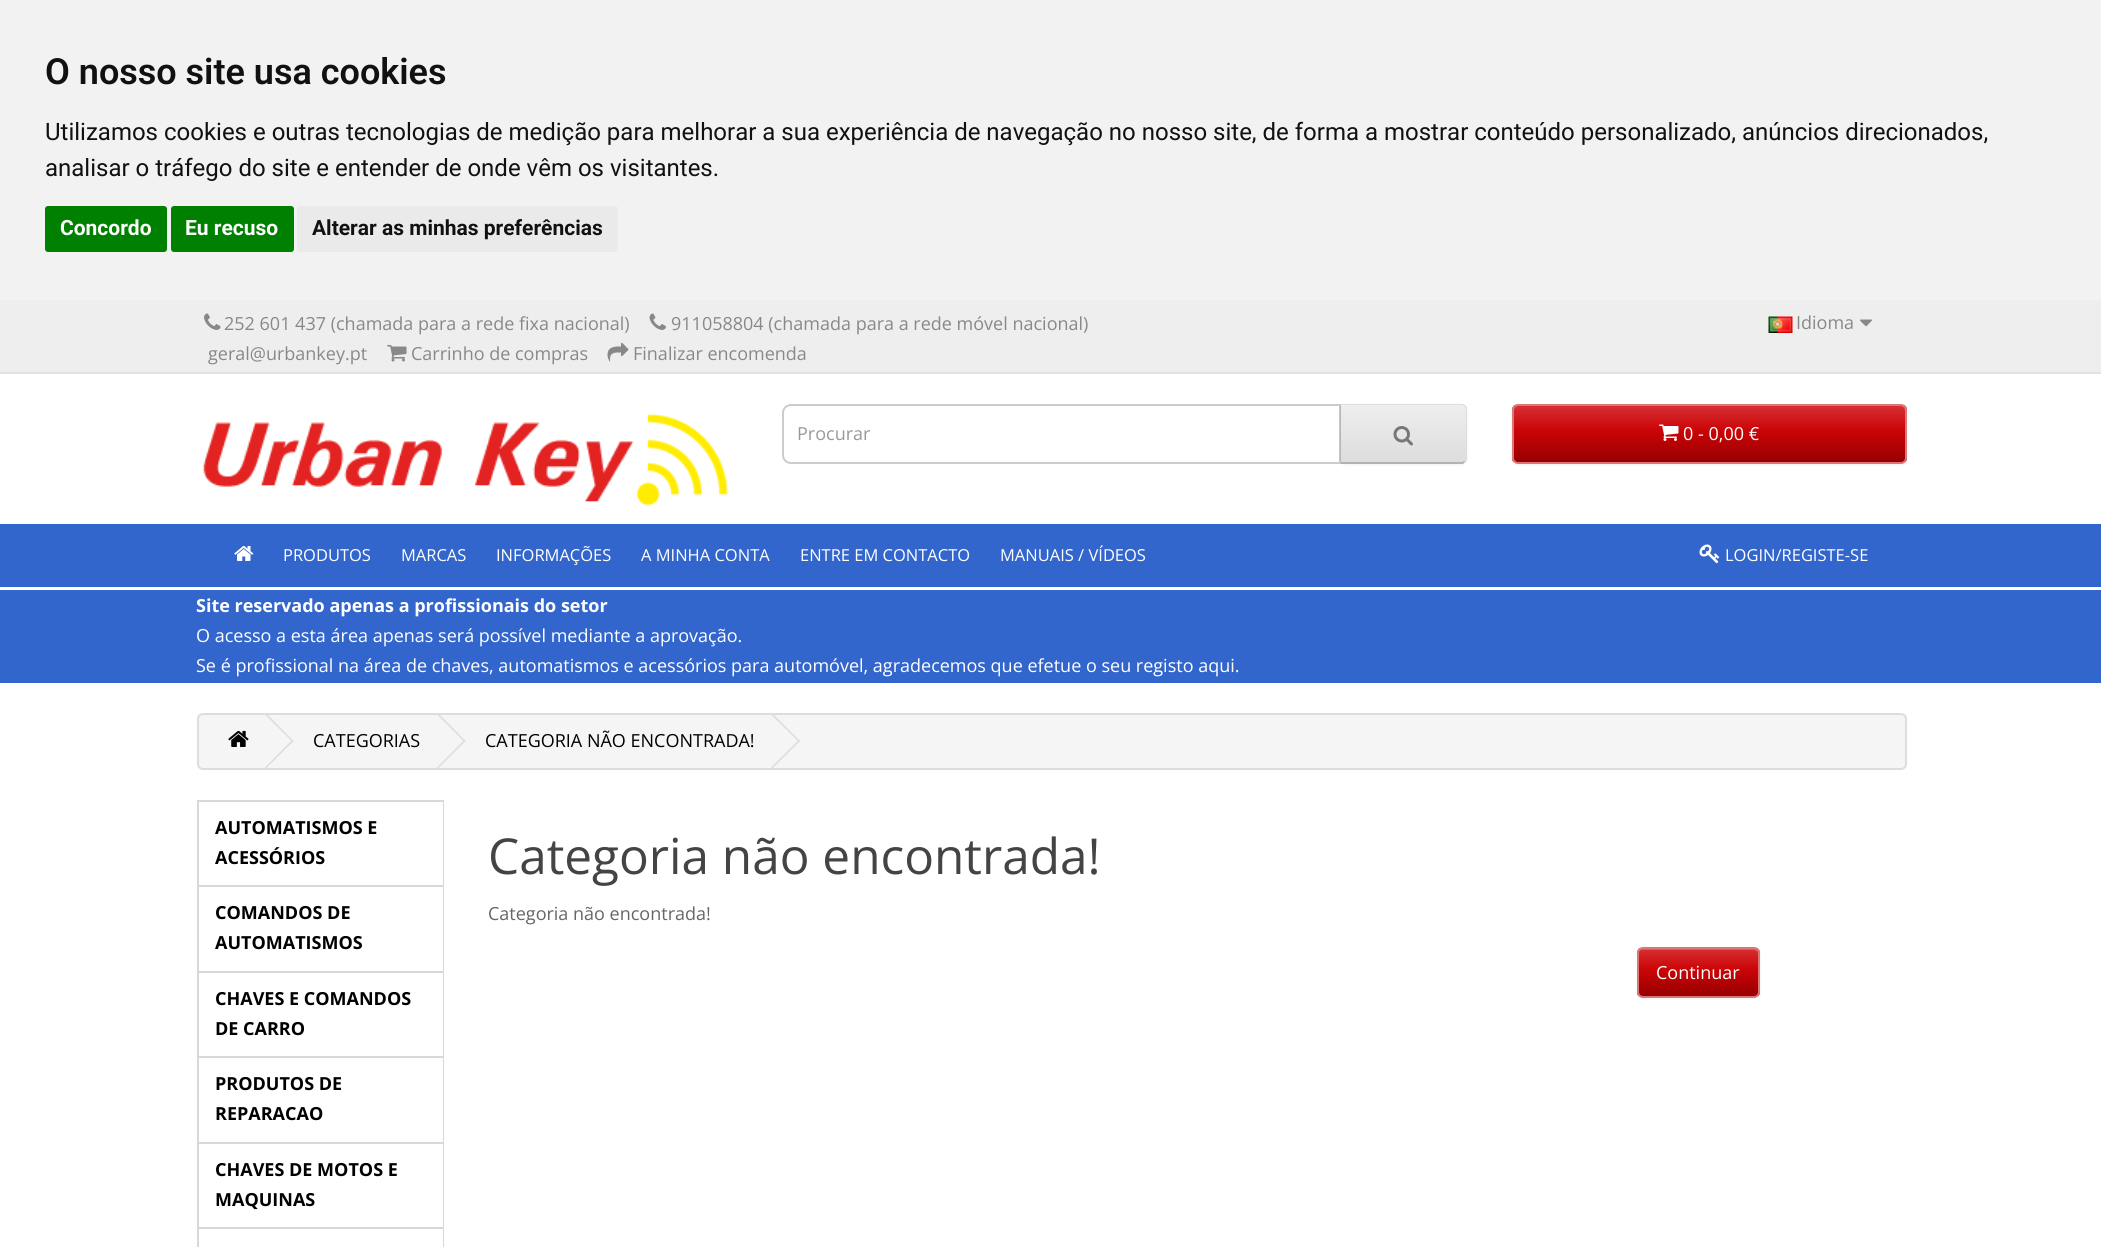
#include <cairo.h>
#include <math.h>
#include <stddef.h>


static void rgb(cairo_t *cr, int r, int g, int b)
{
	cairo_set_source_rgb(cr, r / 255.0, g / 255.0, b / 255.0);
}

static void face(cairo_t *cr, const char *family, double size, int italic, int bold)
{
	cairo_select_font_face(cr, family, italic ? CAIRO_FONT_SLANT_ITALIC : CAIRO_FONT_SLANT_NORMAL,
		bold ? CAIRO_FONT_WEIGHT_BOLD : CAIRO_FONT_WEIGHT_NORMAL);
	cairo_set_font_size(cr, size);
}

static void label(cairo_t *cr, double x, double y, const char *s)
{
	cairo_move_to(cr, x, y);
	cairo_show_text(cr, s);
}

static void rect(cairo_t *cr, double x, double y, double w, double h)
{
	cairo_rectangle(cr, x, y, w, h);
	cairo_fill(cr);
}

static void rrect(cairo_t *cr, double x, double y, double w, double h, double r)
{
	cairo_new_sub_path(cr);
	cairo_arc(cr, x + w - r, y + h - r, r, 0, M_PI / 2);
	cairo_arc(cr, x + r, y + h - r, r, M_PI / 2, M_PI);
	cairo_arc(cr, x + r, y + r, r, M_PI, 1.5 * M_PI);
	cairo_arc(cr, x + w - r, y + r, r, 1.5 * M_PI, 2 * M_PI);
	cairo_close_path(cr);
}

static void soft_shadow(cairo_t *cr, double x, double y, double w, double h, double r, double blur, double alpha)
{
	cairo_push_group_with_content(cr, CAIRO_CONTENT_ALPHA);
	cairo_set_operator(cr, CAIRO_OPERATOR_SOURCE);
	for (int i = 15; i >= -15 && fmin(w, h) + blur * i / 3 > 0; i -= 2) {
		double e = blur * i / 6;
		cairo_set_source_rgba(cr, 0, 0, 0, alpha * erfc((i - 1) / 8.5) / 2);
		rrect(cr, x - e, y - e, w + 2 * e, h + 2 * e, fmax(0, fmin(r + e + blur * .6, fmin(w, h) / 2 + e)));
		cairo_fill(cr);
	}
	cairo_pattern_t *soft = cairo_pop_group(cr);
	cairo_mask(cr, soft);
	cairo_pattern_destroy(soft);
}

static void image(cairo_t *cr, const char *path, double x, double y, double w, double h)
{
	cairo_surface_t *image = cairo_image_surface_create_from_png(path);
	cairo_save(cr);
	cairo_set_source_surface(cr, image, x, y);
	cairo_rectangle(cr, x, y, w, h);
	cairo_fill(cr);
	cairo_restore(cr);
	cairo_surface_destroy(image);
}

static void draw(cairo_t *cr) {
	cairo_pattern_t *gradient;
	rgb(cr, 255, 255, 255);
	cairo_paint(cr);
	rgb(cr, 242, 242, 242);
	rect(cr, 0, 0, 2101, 300);
	face(cr, "Roboto SemiBold", 36, 0, 0);
	rgb(cr, 17, 17, 17);
	label(cr, 45, 84, "O nosso site usa cookies");
	face(cr, "Roboto", 24, 0, 0);
	label(cr, 45, 140, "Utilizamos cookies e outras tecnologias de medição para melhorar a sua experiência de navegação no nosso site, de forma a mostrar conteúdo personalizado, anúncios direcionados,");
	label(cr, 45, 176, "analisar o tráfego do site e entender de onde vêm os visitantes.");
	rgb(cr, 0, 128, 0);
	rrect(cr, 45, 206, 122, 46, 3);
	cairo_fill(cr);
	face(cr, "Roboto", 21, 0, 1);
	rgb(cr, 255, 255, 255);
	label(cr, 60, 235, "Concordo");
	rgb(cr, 0, 128, 0);
	rrect(cr, 171, 206, 123, 46, 3);
	cairo_fill(cr);
	rgb(cr, 255, 255, 255);
	label(cr, 185, 235, "Eu recuso");
	rgb(cr, 234, 234, 234);
	rrect(cr, 297, 206, 321, 46, 3);
	cairo_fill(cr);
	rgb(cr, 17, 17, 17);
	label(cr, 312, 235, "Alterar as minhas preferências");
	rgb(cr, 238, 238, 238);
	rect(cr, 0, 300, 2101, 72);
	rgb(cr, 226, 226, 226);
	rect(cr, 0, 372, 2101, 2);
	image(cr, "image0.png", 204, 313, 17, 17);
	face(cr, "Open Sans", 18, 0, 0);
	rgb(cr, 136, 136, 136);
	label(cr, 224, 330, "252 601 437 (chamada para a rede fixa nacional)");
	image(cr, "image1.png", 649, 313, 17, 17);
	label(cr, 671, 330, "911058804 (chamada para a rede móvel nacional)");
	label(cr, 208, 360, "geral@urbankey.pt");
	image(cr, "image2.png", 387, 345, 20, 17);
	label(cr, 411, 360, "Carrinho de compras");
	image(cr, "image3.png", 607, 342, 22, 20);
	label(cr, 633, 360, "Finalizar encomenda");
	image(cr, "image4.png", 1768, 316, 25, 17);
	label(cr, 1796, 329, "Idioma");
	image(cr, "image5.png", 1860, 319, 12, 8);
	image(cr, "image6.png", 203, 413, 525, 93);
	cairo_new_path(cr);
	cairo_move_to(cr, 791, 405);
	cairo_line_to(cr, 1340, 405);
	cairo_line_to(cr, 1340, 463);
	cairo_line_to(cr, 791, 463);
	cairo_curve_to(cr, 786.5, 463, 783, 459.5, 783, 455);
	cairo_line_to(cr, 783, 413);
	cairo_curve_to(cr, 783, 408.5, 786.5, 405, 791, 405);
	cairo_close_path(cr);
	rgb(cr, 204, 204, 204);
	cairo_stroke(cr);
	rgb(cr, 153, 153, 153);
	label(cr, 797, 440, "Procurar");
	rgb(cr, 0, 0, 0);
	soft_shadow(cr, 1340, 405, 127, 60, 6, 1.5, 0.05);
	rgb(cr, 231, 231, 231);
	cairo_new_path(cr);
	cairo_move_to(cr, 1340, 404);
	cairo_line_to(cr, 1461, 404);
	cairo_curve_to(cr, 1464.5, 404, 1467, 406.5, 1467, 410);
	cairo_line_to(cr, 1467, 458);
	cairo_curve_to(cr, 1467, 461.5, 1464.5, 464, 1461, 464);
	cairo_line_to(cr, 1340, 464);
	cairo_close_path(cr);
	cairo_fill(cr);
	cairo_save(cr);
	cairo_new_path(cr);
	cairo_move_to(cr, 1340, 404);
	cairo_line_to(cr, 1461, 404);
	cairo_curve_to(cr, 1464.5, 404, 1467, 406.5, 1467, 410);
	cairo_line_to(cr, 1467, 458);
	cairo_curve_to(cr, 1467, 461.5, 1464.5, 464, 1461, 464);
	cairo_line_to(cr, 1340, 464);
	cairo_close_path(cr);
	cairo_clip(cr);
	gradient = cairo_pattern_create_linear(1403, 405, 1403, 462);
	cairo_pattern_add_color_stop_rgba(gradient, 0, 0.933, 0.933, 0.933, 1);
	cairo_pattern_add_color_stop_rgba(gradient, 1, 0.867, 0.867, 0.867, 1);
	cairo_set_source(cr, gradient);
	cairo_pattern_destroy(gradient);
	rect(cr, 1341, 405, 126, 57);
	cairo_restore(cr);
	rgb(cr, 241, 241, 241);
	cairo_new_path(cr);
	cairo_move_to(cr, 1341, 406);
	cairo_line_to(cr, 1461, 406);
	cairo_curve_to(cr, 1463, 406, 1466, 409, 1466, 411);
	cairo_line_to(cr, 1466, 410);
	cairo_curve_to(cr, 1466, 407, 1464, 405, 1461, 405);
	cairo_line_to(cr, 1341, 405);
	cairo_close_path(cr);
	cairo_fill(cr);
	rgb(cr, 221, 221, 221);
	cairo_new_path(cr);
	cairo_move_to(cr, 1340, 404);
	cairo_line_to(cr, 1341, 405);
	cairo_line_to(cr, 1461, 405);
	cairo_line_to(cr, 1464, 406);
	cairo_line_to(cr, 1465, 405);
	cairo_curve_to(cr, 1464, 404, 1462, 404, 1461, 404);
	cairo_close_path(cr);
	cairo_fill(cr);
	cairo_new_path(cr);
	cairo_move_to(cr, 1465, 405);
	cairo_curve_to(cr, 1466, 406, 1467, 408, 1467, 410);
	cairo_line_to(cr, 1467, 458);
	cairo_curve_to(cr, 1467, 459, 1466, 461, 1465, 462);
	cairo_line_to(cr, 1464, 461);
	cairo_line_to(cr, 1466, 458);
	cairo_line_to(cr, 1466, 409);
	cairo_line_to(cr, 1464, 406);
	cairo_close_path(cr);
	cairo_fill(cr);
	rgb(cr, 179, 179, 179);
	cairo_new_path(cr);
	cairo_move_to(cr, 1340, 464);
	cairo_line_to(cr, 1341, 462);
	cairo_line_to(cr, 1461, 462);
	cairo_curve_to(cr, 1462, 462, 1463, 462, 1464, 461);
	cairo_line_to(cr, 1465, 462);
	cairo_line_to(cr, 1463, 464);
	cairo_close_path(cr);
	cairo_fill(cr);
	rgb(cr, 183, 183, 183);
	cairo_new_path(cr);
	cairo_move_to(cr, 1341, 405);
	cairo_line_to(cr, 1340, 404);
	cairo_line_to(cr, 1340, 463);
	cairo_line_to(cr, 1341, 462);
	cairo_close_path(cr);
	cairo_fill(cr);
	image(cr, "image7.png", 1393, 426, 20, 20);
	rgb(cr, 0, 0, 0);
	soft_shadow(cr, 1512, 405, 395, 60, 6, 1.5, 0.05);
	cairo_save(cr);
	rrect(cr, 1512, 404, 395, 60, 6);
	cairo_clip(cr);
	gradient = cairo_pattern_create_linear(1709, 405, 1709, 462);
	cairo_pattern_add_color_stop_rgba(gradient, 0, 0.839, 0.192, 0.204, 1);
	cairo_pattern_add_color_stop_rgba(gradient, 0.44, 0.8, 0.016, 0.027, 1);
	cairo_pattern_add_color_stop_rgba(gradient, 1, 0.588, 0, 0.008, 1);
	cairo_set_source(cr, gradient);
	cairo_pattern_destroy(gradient);
	rect(cr, 1512, 405, 395, 57);
	cairo_restore(cr);
	cairo_set_source_rgba(cr, 1, 1, 1, 0.2);
	cairo_new_path(cr);
	cairo_move_to(cr, 1518, 406);
	cairo_line_to(cr, 1900, 406);
	cairo_curve_to(cr, 1903, 406, 1905, 409, 1905, 411);
	cairo_line_to(cr, 1905, 410);
	cairo_curve_to(cr, 1905, 407, 1903, 405, 1900, 405);
	cairo_line_to(cr, 1519, 405);
	cairo_curve_to(cr, 1516, 405, 1514, 407, 1514, 410);
	cairo_line_to(cr, 1514, 411);
	cairo_curve_to(cr, 1514, 409, 1516, 406, 1518, 406);
	cairo_close_path(cr);
	cairo_fill(cr);
	rrect(cr, 1513, 405, 393, 58, 5);
	rgb(cr, 222, 118, 118);
	cairo_stroke(cr);
	image(cr, "image8.png", 1659, 424, 20, 17);
	rgb(cr, 255, 255, 255);
	label(cr, 1683, 440, "0 - 0,00 €");
	rgb(cr, 51, 102, 204);
	rect(cr, 0, 524, 2101, 63);
	image(cr, "image9.png", 234, 546, 20, 15);
	face(cr, "Open Sans", 16.5, 0, 0);
	rgb(cr, 255, 255, 255);
	label(cr, 283, 561, "PRODUTOS");
	label(cr, 401, 561, "MARCAS");
	label(cr, 496, 561, "INFORMAÇÕES");
	label(cr, 641, 561, "A MINHA CONTA");
	label(cr, 800, 561, "ENTRE EM CONTACTO");
	label(cr, 1000, 561, "MANUAIS / VÍDEOS");
	image(cr, "image10.png", 1699, 544, 21, 20);
	label(cr, 1725, 561, "LOGIN/REGISTE-SE");
	rgb(cr, 51, 102, 204);
	rect(cr, 0, 590, 2101, 93);
	face(cr, "Open Sans", 18, 0, 1);
	rgb(cr, 255, 255, 255);
	label(cr, 196, 612, "Site reservado apenas a profissionais do setor");
	face(cr, "Open Sans", 18, 0, 0);
	label(cr, 196, 642, "O acesso a esta área apenas será possível mediante a aprovação.");
	label(cr, 196, 672, "Se é profissional na área de chaves, automatismos e acessórios para automóvel, agradecemos que efetue o seu registo aqui.");
	rgb(cr, 245, 245, 245);
	rrect(cr, 198, 714, 1708, 55, 5);
	cairo_fill_preserve(cr);
	rgb(cr, 221, 221, 221);
	cairo_stroke(cr);
	image(cr, "image11.png", 228, 730, 21, 17);
	cairo_new_path(cr);
	cairo_move_to(cr, 265, 714.5);
	cairo_line_to(cr, 266, 713);
	cairo_line_to(cr, 293.5, 741);
	cairo_line_to(cr, 292.5, 742);
	cairo_close_path(cr);
	cairo_fill(cr);
	cairo_new_path(cr);
	cairo_move_to(cr, 265, 767.5);
	cairo_line_to(cr, 292.5, 739.5);
	cairo_line_to(cr, 293.5, 741);
	cairo_line_to(cr, 266, 768.5);
	cairo_close_path(cr);
	cairo_fill(cr);
	rgb(cr, 0, 0, 0);
	label(cr, 313, 747, "CATEGORIAS");
	rgb(cr, 221, 221, 221);
	cairo_new_path(cr);
	cairo_move_to(cr, 437, 714.5);
	cairo_line_to(cr, 438, 713);
	cairo_line_to(cr, 465.5, 741);
	cairo_line_to(cr, 464.5, 742);
	cairo_close_path(cr);
	cairo_fill(cr);
	cairo_new_path(cr);
	cairo_move_to(cr, 437, 767.5);
	cairo_line_to(cr, 464.5, 739.5);
	cairo_line_to(cr, 465.5, 741);
	cairo_line_to(cr, 438, 768.5);
	cairo_close_path(cr);
	cairo_fill(cr);
	rgb(cr, 0, 0, 0);
	label(cr, 485, 747, "CATEGORIA NÃO ENCONTRADA!");
	rgb(cr, 221, 221, 221);
	cairo_new_path(cr);
	cairo_move_to(cr, 771, 714.5);
	cairo_line_to(cr, 772, 713);
	cairo_line_to(cr, 800, 741);
	cairo_line_to(cr, 799, 742);
	cairo_close_path(cr);
	cairo_fill(cr);
	cairo_new_path(cr);
	cairo_move_to(cr, 771, 767.5);
	cairo_line_to(cr, 799, 739.5);
	cairo_line_to(cr, 800, 741);
	cairo_line_to(cr, 772, 768.5);
	cairo_close_path(cr);
	cairo_fill(cr);
	rgb(cr, 216, 216, 216);
	rect(cr, 197, 800, 247, 2);
	rect(cr, 443, 800, 1, 85);
	rect(cr, 197, 800, 2, 85);
	face(cr, "Open Sans", 18, 0, 1);
	rgb(cr, 0, 0, 0);
	label(cr, 215, 834, "AUTOMATISMOS E");
	label(cr, 215, 864, "ACESSÓRIOS");
	rgb(cr, 216, 216, 216);
	rect(cr, 197, 885, 247, 2);
	rect(cr, 443, 885, 1, 86);
	rect(cr, 197, 885, 2, 86);
	rgb(cr, 0, 0, 0);
	label(cr, 215, 919, "COMANDOS DE");
	label(cr, 215, 949, "AUTOMATISMOS");
	rgb(cr, 216, 216, 216);
	rect(cr, 197, 971, 247, 2);
	rect(cr, 443, 971, 1, 85);
	rect(cr, 197, 971, 2, 85);
	rgb(cr, 0, 0, 0);
	label(cr, 215, 1005, "CHAVES E COMANDOS");
	label(cr, 215, 1035, "DE CARRO");
	rgb(cr, 216, 216, 216);
	rect(cr, 197, 1056, 247, 2);
	rect(cr, 443, 1056, 1, 86);
	rect(cr, 197, 1056, 2, 86);
	rgb(cr, 0, 0, 0);
	label(cr, 215, 1090, "PRODUTOS DE");
	label(cr, 215, 1120, "REPARACAO");
	rgb(cr, 216, 216, 216);
	rect(cr, 197, 1142, 247, 2);
	rect(cr, 443, 1142, 1, 85);
	rect(cr, 197, 1142, 2, 85);
	rgb(cr, 0, 0, 0);
	label(cr, 215, 1176, "CHAVES DE MOTOS E");
	label(cr, 215, 1206, "MAQUINAS");
	rgb(cr, 216, 216, 216);
	rect(cr, 197, 1227, 247, 2);
	rect(cr, 443, 1227, 1, 20);
	rect(cr, 197, 1227, 2, 20);
	face(cr, "Open Sans", 49.5, 0, 0);
	rgb(cr, 68, 68, 68);
	label(cr, 488, 874, "Categoria não encontrada!");
	face(cr, "Open Sans", 18, 0, 0);
	rgb(cr, 102, 102, 102);
	label(cr, 488, 920, "Categoria não encontrada!");
	rgb(cr, 0, 0, 0);
	soft_shadow(cr, 1637, 948, 123, 51, 6, 1.5, 0.05);
	cairo_save(cr);
	rrect(cr, 1637, 947, 123, 51, 6);
	cairo_clip(cr);
	gradient = cairo_pattern_create_linear(1698, 948, 1698, 996);
	cairo_pattern_add_color_stop_rgba(gradient, 0, 0.839, 0.192, 0.204, 1);
	cairo_pattern_add_color_stop_rgba(gradient, 0.44, 0.8, 0.016, 0.027, 1);
	cairo_pattern_add_color_stop_rgba(gradient, 1, 0.588, 0, 0.008, 1);
	cairo_set_source(cr, gradient);
	cairo_pattern_destroy(gradient);
	rect(cr, 1637, 948, 123, 48);
	cairo_restore(cr);
	cairo_set_source_rgba(cr, 1, 1, 1, 0.2);
	cairo_new_path(cr);
	cairo_move_to(cr, 1642, 950);
	cairo_line_to(cr, 1754, 950);
	cairo_curve_to(cr, 1756, 950, 1758, 952, 1758, 954);
	cairo_curve_to(cr, 1758, 943, 1739, 948, 1735, 948);
	cairo_line_to(cr, 1661, 948);
	cairo_curve_to(cr, 1657, 948, 1638, 943, 1638, 954);
	cairo_curve_to(cr, 1638, 952, 1640, 950, 1642, 950);
	cairo_close_path(cr);
	cairo_fill(cr);
	rrect(cr, 1638, 948, 121, 49, 5);
	rgb(cr, 222, 118, 118);
	cairo_stroke(cr);
	rgb(cr, 255, 255, 255);
	label(cr, 1656, 979, "Continuar");
}

int main(void) {
	cairo_surface_t *surface = cairo_image_surface_create(CAIRO_FORMAT_RGB24, 2101, 1247);
	cairo_t *cr = cairo_create(surface);
	cairo_font_options_t *options = cairo_font_options_create();
	cairo_font_options_set_hint_metrics(options, CAIRO_HINT_METRICS_OFF);
	cairo_font_options_set_hint_style(options, CAIRO_HINT_STYLE_NONE);
	cairo_set_font_options(cr, options);
	cairo_set_miter_limit(cr, 4);
	draw(cr);
	cairo_surface_write_to_png(surface, "render.png");
	cairo_font_options_destroy(options);
	cairo_destroy(cr);
	cairo_surface_destroy(surface);
	return 0;
}
